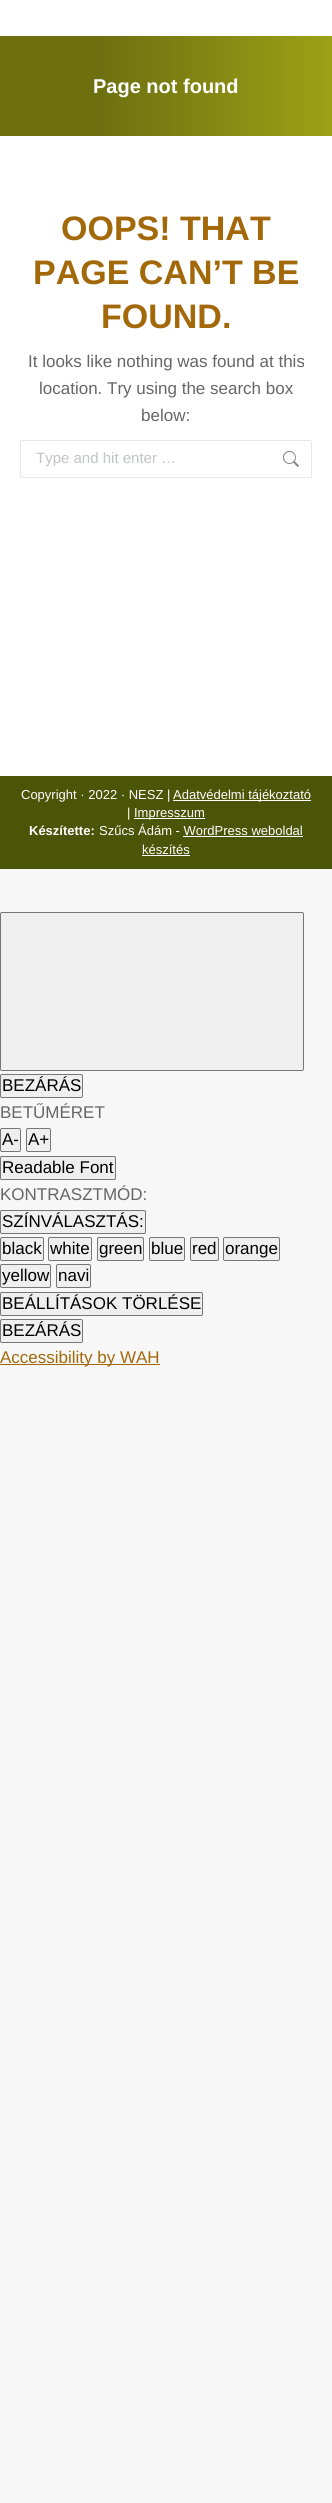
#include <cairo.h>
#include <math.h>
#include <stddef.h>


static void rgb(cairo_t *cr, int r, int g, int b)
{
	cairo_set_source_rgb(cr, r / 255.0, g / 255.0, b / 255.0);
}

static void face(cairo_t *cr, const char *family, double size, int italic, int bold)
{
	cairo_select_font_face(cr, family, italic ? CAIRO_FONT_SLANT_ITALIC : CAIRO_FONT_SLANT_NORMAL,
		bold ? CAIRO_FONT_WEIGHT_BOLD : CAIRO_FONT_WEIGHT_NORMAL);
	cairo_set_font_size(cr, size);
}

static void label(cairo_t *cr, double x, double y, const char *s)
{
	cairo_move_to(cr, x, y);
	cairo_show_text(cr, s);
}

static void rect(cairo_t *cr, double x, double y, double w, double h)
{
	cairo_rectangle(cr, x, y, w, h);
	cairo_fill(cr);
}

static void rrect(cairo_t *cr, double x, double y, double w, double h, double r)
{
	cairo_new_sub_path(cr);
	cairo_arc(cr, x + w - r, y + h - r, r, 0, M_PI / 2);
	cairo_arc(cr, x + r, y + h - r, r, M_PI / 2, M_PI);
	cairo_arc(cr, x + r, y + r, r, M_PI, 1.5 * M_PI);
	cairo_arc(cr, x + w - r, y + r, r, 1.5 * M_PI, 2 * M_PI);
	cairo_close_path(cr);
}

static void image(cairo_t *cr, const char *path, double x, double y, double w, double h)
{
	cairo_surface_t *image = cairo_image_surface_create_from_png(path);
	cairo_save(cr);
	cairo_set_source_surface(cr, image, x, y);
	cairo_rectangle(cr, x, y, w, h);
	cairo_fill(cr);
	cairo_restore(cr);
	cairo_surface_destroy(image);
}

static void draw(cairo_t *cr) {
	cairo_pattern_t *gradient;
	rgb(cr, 247, 247, 247);
	cairo_paint(cr);
	rgb(cr, 255, 255, 255);
	rect(cr, 0, 0, 332, 776);
	gradient = cairo_pattern_create_linear(0, 86, 332, 86);
	cairo_pattern_add_color_stop_rgba(gradient, 0.3, 0.431, 0.439, 0.063, 1);
	cairo_pattern_add_color_stop_rgba(gradient, 1, 0.612, 0.631, 0.086, 1);
	cairo_set_source(cr, gradient);
	cairo_pattern_destroy(gradient);
	rect(cr, 0, 36, 332, 100);
	face(cr, "Liberation Sans", 20, 0, 1);
	rgb(cr, 255, 255, 255);
	label(cr, 93, 93, "Page not found");
	face(cr, "Liberation Sans", 34, 0, 1);
	rgb(cr, 163, 104, 9);
	label(cr, 61, 240, "OOPS! THAT");
	label(cr, 33, 284, "PAGE CAN’T BE");
	label(cr, 101, 328, "FOUND.");
	face(cr, "Liberation Sans", 17, 0, 0);
	rgb(cr, 102, 102, 102);
	label(cr, 28, 367, "It looks like nothing was found at this");
	label(cr, 39, 394, "location. Try using the search box");
	label(cr, 141, 421, "below:");
	rrect(cr, 20.5, 440.5, 291, 37, 1.5);
	rgb(cr, 231, 231, 231);
	cairo_set_line_width(cr, 1);
	cairo_stroke(cr);
	face(cr, "Liberation Sans", 15, 0, 0);
	rgb(cr, 194, 195, 198);
	label(cr, 36, 463, "Type and hit enter …");
	image(cr, "image0.png", 283, 451, 16, 16);
	rgb(cr, 74, 85, 8);
	rect(cr, 0, 776, 332, 93);
	face(cr, "Liberation Sans", 13, 0, 0);
	rgb(cr, 255, 255, 255);
	label(cr, 21, 799, "Copyright · 2022 · NESZ |");
	rect(cr, 173, 800, 138, 1);
	label(cr, 173, 799, "Adatvédelmi tájékoztató");
	label(cr, 127, 817, "|");
	rect(cr, 134, 818, 71, 1);
	label(cr, 134, 817, "Impresszum");
	face(cr, "Liberation Sans", 13, 0, 1);
	label(cr, 29, 835, "Készítette:");
	face(cr, "Liberation Sans", 13, 0, 0);
	label(cr, 99, 835, "Szűcs Ádám - WordPress weboldal");
	label(cr, 142, 854, "készítés");
	rect(cr, 183, 836, 120, 1);
	rect(cr, 142, 855, 48, 1);
	rgb(cr, 239, 239, 239);
	rrect(cr, 0.5, 912.5, 303, 158, 1.5);
	cairo_fill_preserve(cr);
	rgb(cr, 118, 118, 118);
	cairo_stroke(cr);
	rgb(cr, 239, 239, 239);
	rrect(cr, 0.5, 1074.5, 82, 23, 1.5);
	cairo_fill_preserve(cr);
	rgb(cr, 118, 118, 118);
	cairo_stroke(cr);
	face(cr, "Liberation Sans", 17, 0, 0);
	rgb(cr, 0, 0, 0);
	label(cr, 2, 1091, "BEZÁRÁS");
	rgb(cr, 102, 102, 102);
	label(cr, 0, 1118, "BETŰMÉRET");
	rgb(cr, 239, 239, 239);
	rrect(cr, 0.5, 1128.5, 20, 23, 1.5);
	cairo_fill_preserve(cr);
	rgb(cr, 118, 118, 118);
	cairo_stroke(cr);
	rgb(cr, 0, 0, 0);
	label(cr, 2, 1145, "A-");
	rgb(cr, 239, 239, 239);
	rrect(cr, 26.5, 1128.5, 24, 23, 1.5);
	cairo_fill_preserve(cr);
	rgb(cr, 118, 118, 118);
	cairo_stroke(cr);
	rgb(cr, 0, 0, 0);
	label(cr, 28, 1145, "A+");
	rgb(cr, 239, 239, 239);
	rrect(cr, 0.5, 1156.5, 115, 23, 1.5);
	cairo_fill_preserve(cr);
	rgb(cr, 118, 118, 118);
	cairo_stroke(cr);
	rgb(cr, 0, 0, 0);
	label(cr, 2, 1173, "Readable Font");
	rgb(cr, 102, 102, 102);
	label(cr, 0, 1200, "KONTRASZTMÓD:");
	rgb(cr, 239, 239, 239);
	rrect(cr, 0.5, 1210.5, 145, 23, 1.5);
	cairo_fill_preserve(cr);
	rgb(cr, 118, 118, 118);
	cairo_stroke(cr);
	rgb(cr, 0, 0, 0);
	label(cr, 2, 1227, "SZÍNVÁLASZTÁS:");
	rgb(cr, 239, 239, 239);
	rrect(cr, 0.5, 1237.5, 43, 23, 1.5);
	cairo_fill_preserve(cr);
	rgb(cr, 118, 118, 118);
	cairo_stroke(cr);
	rgb(cr, 0, 0, 0);
	label(cr, 2, 1254, "black");
	rgb(cr, 239, 239, 239);
	rrect(cr, 48.5, 1237.5, 43, 23, 1.5);
	cairo_fill_preserve(cr);
	rgb(cr, 118, 118, 118);
	cairo_stroke(cr);
	rgb(cr, 0, 0, 0);
	label(cr, 50, 1254, "white");
	rgb(cr, 239, 239, 239);
	rrect(cr, 97.5, 1237.5, 46, 23, 1.5);
	cairo_fill_preserve(cr);
	rgb(cr, 118, 118, 118);
	cairo_stroke(cr);
	rgb(cr, 0, 0, 0);
	label(cr, 99, 1254, "green");
	rgb(cr, 239, 239, 239);
	rrect(cr, 149.5, 1237.5, 35, 23, 1.5);
	cairo_fill_preserve(cr);
	rgb(cr, 118, 118, 118);
	cairo_stroke(cr);
	rgb(cr, 0, 0, 0);
	label(cr, 151, 1254, "blue");
	rgb(cr, 239, 239, 239);
	rrect(cr, 190.5, 1237.5, 28, 23, 1.5);
	cairo_fill_preserve(cr);
	rgb(cr, 118, 118, 118);
	cairo_stroke(cr);
	rgb(cr, 0, 0, 0);
	label(cr, 192, 1254, "red");
	rgb(cr, 239, 239, 239);
	rrect(cr, 223.5, 1237.5, 56, 23, 1.5);
	cairo_fill_preserve(cr);
	rgb(cr, 118, 118, 118);
	cairo_stroke(cr);
	rgb(cr, 0, 0, 0);
	label(cr, 225, 1254, "orange");
	rgb(cr, 239, 239, 239);
	rrect(cr, 0.5, 1264.5, 50, 23, 1.5);
	cairo_fill_preserve(cr);
	rgb(cr, 118, 118, 118);
	cairo_stroke(cr);
	rgb(cr, 0, 0, 0);
	label(cr, 2, 1281, "yellow");
	rgb(cr, 239, 239, 239);
	rrect(cr, 56.5, 1264.5, 34, 23, 1.5);
	cairo_fill_preserve(cr);
	rgb(cr, 118, 118, 118);
	cairo_stroke(cr);
	rgb(cr, 0, 0, 0);
	label(cr, 58, 1281, "navi");
	rgb(cr, 239, 239, 239);
	rrect(cr, 0.5, 1292.5, 202, 23, 1.5);
	cairo_fill_preserve(cr);
	rgb(cr, 118, 118, 118);
	cairo_stroke(cr);
	rgb(cr, 0, 0, 0);
	label(cr, 2, 1309, "BEÁLLÍTÁSOK TÖRLÉSE");
	rgb(cr, 239, 239, 239);
	rrect(cr, 0.5, 1319.5, 82, 23, 1.5);
	cairo_fill_preserve(cr);
	rgb(cr, 118, 118, 118);
	cairo_stroke(cr);
	rgb(cr, 0, 0, 0);
	label(cr, 2, 1336, "BEZÁRÁS");
	rgb(cr, 163, 104, 9);
	rect(cr, 0, 1364, 160, 1);
	label(cr, 0, 1363, "Accessibility by WAH");
}

int main(void) {
	cairo_surface_t *surface = cairo_image_surface_create(CAIRO_FORMAT_RGB24, 332, 2503);
	cairo_t *cr = cairo_create(surface);
	cairo_font_options_t *options = cairo_font_options_create();
	cairo_font_options_set_hint_metrics(options, CAIRO_HINT_METRICS_OFF);
	cairo_font_options_set_hint_style(options, CAIRO_HINT_STYLE_NONE);
	cairo_set_font_options(cr, options);
	cairo_set_miter_limit(cr, 4);
	draw(cr);
	cairo_surface_write_to_png(surface, "render.png");
	cairo_font_options_destroy(options);
	cairo_destroy(cr);
	cairo_surface_destroy(surface);
	return 0;
}
